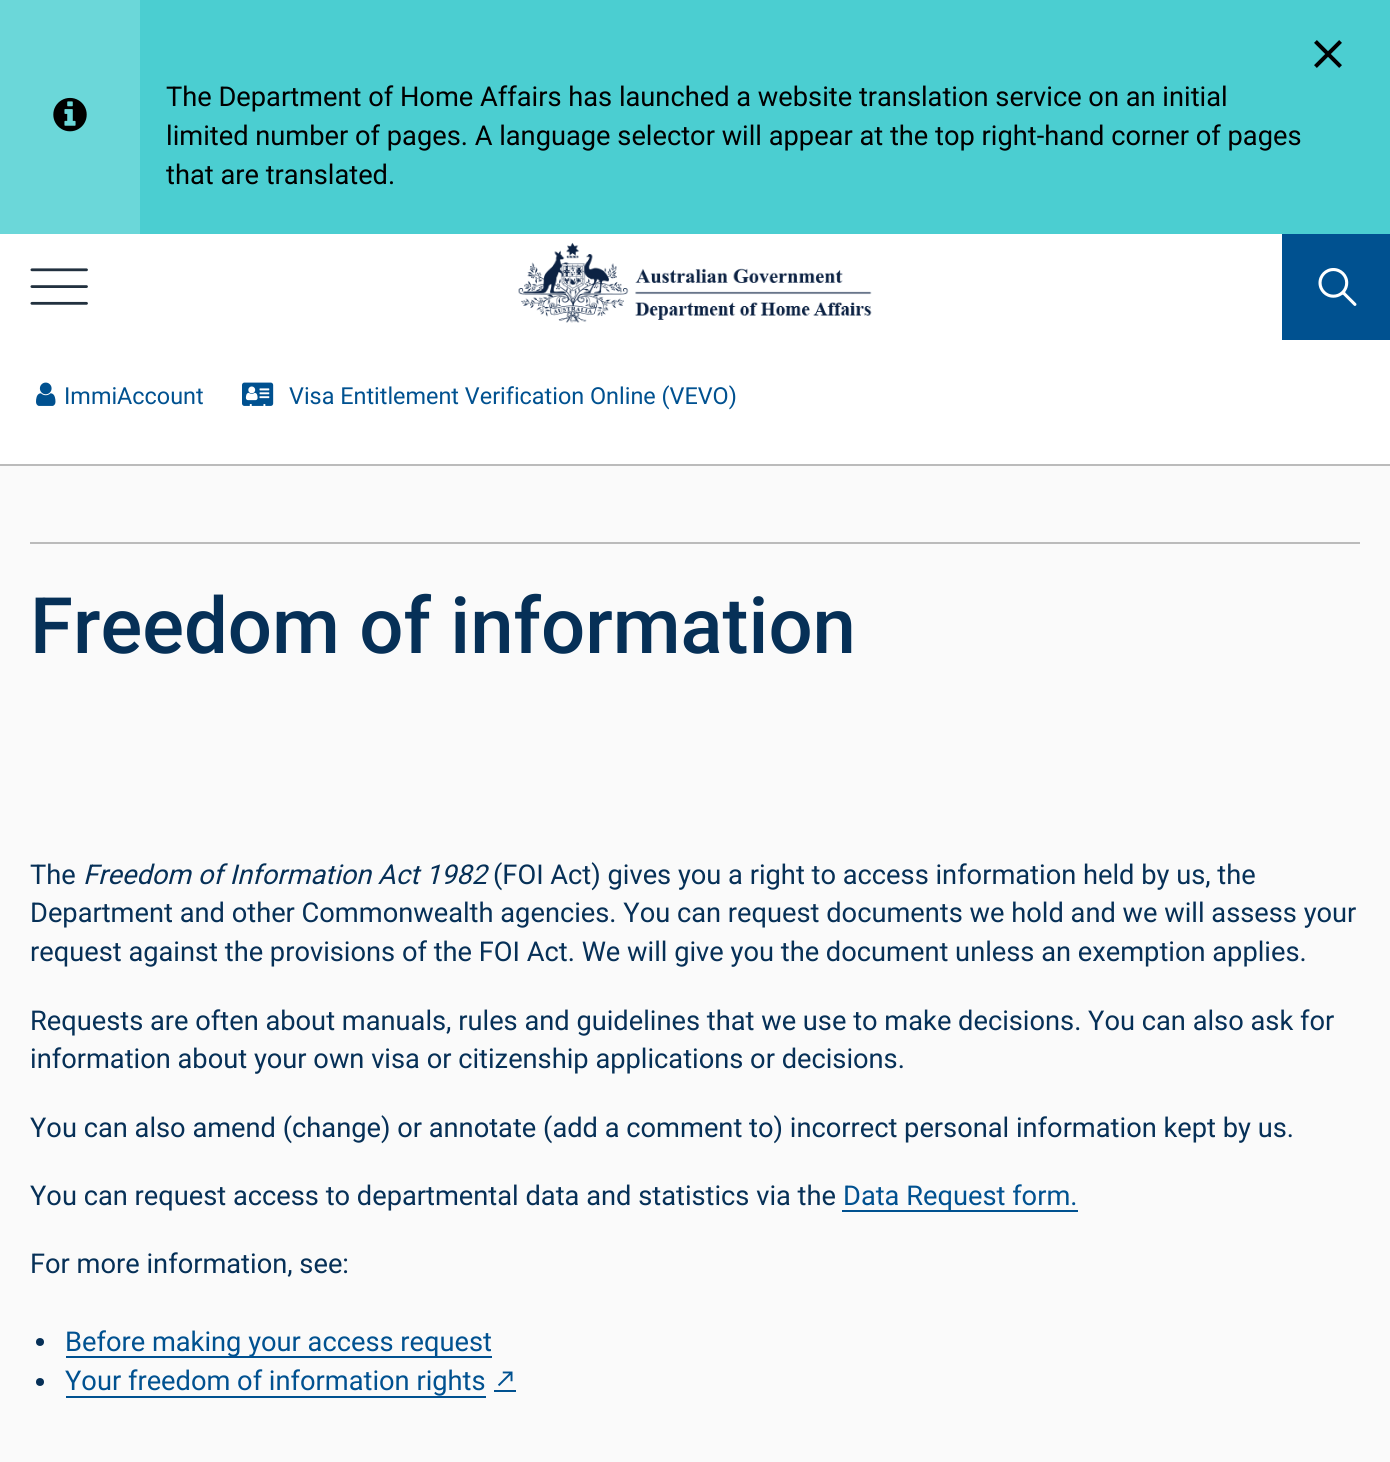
#include <cairo.h>
#include <math.h>
#include <stddef.h>


static void rgb(cairo_t *cr, int r, int g, int b)
{
	cairo_set_source_rgb(cr, r / 255.0, g / 255.0, b / 255.0);
}

static void face(cairo_t *cr, const char *family, double size, int italic, int bold)
{
	cairo_select_font_face(cr, family, italic ? CAIRO_FONT_SLANT_ITALIC : CAIRO_FONT_SLANT_NORMAL,
		bold ? CAIRO_FONT_WEIGHT_BOLD : CAIRO_FONT_WEIGHT_NORMAL);
	cairo_set_font_size(cr, size);
}

static void label(cairo_t *cr, double x, double y, const char *s)
{
	cairo_move_to(cr, x, y);
	cairo_show_text(cr, s);
}

static void rect(cairo_t *cr, double x, double y, double w, double h)
{
	cairo_rectangle(cr, x, y, w, h);
	cairo_fill(cr);
}

static void image(cairo_t *cr, const char *path, double x, double y, double w, double h)
{
	cairo_surface_t *image = cairo_image_surface_create_from_png(path);
	cairo_save(cr);
	cairo_set_source_surface(cr, image, x, y);
	cairo_rectangle(cr, x, y, w, h);
	cairo_fill(cr);
	cairo_restore(cr);
	cairo_surface_destroy(image);
}

static void draw(cairo_t *cr) {
	rgb(cr, 250, 250, 250);
	cairo_paint(cr);
	rgb(cr, 75, 206, 209);
	rect(cr, 140, 0, 1250, 234);
	rgb(cr, 107, 215, 217);
	rect(cr, 0, 0, 140, 234);
	image(cr, "image0.png", 53, 97, 34, 35);
	image(cr, "image1.png", 1314, 40, 28, 28);
	face(cr, "Roboto", 27.25, 0, 0);
	rgb(cr, 0, 0, 0);
	label(cr, 166, 106, "The Department of Home Affairs has launched a website translation service on an initial");
	label(cr, 166, 145, "limited number of pages. A language selector will appear at the top right-hand corner of pages");
	label(cr, 166, 184, "that are translated.");
	rgb(cr, 255, 255, 255);
	rect(cr, 0, 234, 1390, 230);
	rgb(cr, 187, 187, 187);
	rect(cr, 0, 464, 1390, 2);
	image(cr, "image2.png", 30, 268, 58, 37);
	image(cr, "image3.png", 518, 242, 354, 81);
	rgb(cr, 0, 81, 144);
	rect(cr, 1282, 234, 108, 106);
	image(cr, "image4.png", 1318, 268, 39, 38);
	image(cr, "image5.png", 36, 382, 20, 24);
	face(cr, "Roboto", 23.4, 0, 0);
	label(cr, 64, 404, "ImmiAccount");
	image(cr, "image6.png", 242, 382, 32, 24);
	label(cr, 289, 404, "Visa Entitlement Verification Online (VEVO)");
	rgb(cr, 187, 187, 187);
	rect(cr, 30, 542, 1330, 2);
	face(cr, "Roboto Medium", 77.9, 0, 0);
	rgb(cr, 6, 48, 87);
	label(cr, 30, 653, "Freedom of information");
	face(cr, "Roboto", 27.25, 0, 0);
	label(cr, 30, 884, "The");
	face(cr, "Roboto", 27.25, 1, 0);
	label(cr, 83, 884, "Freedom of Information Act 1982");
	face(cr, "Roboto", 27.25, 0, 0);
	label(cr, 493, 884, "(FOI Act) gives you a right to access information held by us, the");
	label(cr, 30, 922, "Department and other Commonwealth agencies. You can request documents we hold and we will assess your");
	label(cr, 30, 961, "request against the provisions of the FOI Act. We will give you the document unless an exemption applies.");
	label(cr, 30, 1030, "Requests are often about manuals, rules and guidelines that we use to make decisions. You can also ask for");
	label(cr, 30, 1068, "information about your own visa or citizenship applications or decisions.");
	label(cr, 30, 1137, "You can also amend (change) or annotate (add a comment to) incorrect personal information kept by us.");
	label(cr, 30, 1205, "You can request access to departmental data and statistics via the");
	rgb(cr, 0, 81, 144);
	rect(cr, 842, 1210, 236, 2);
	label(cr, 843, 1205, "Data Request form.");
	rgb(cr, 6, 48, 87);
	label(cr, 30, 1273, "For more information, see:");
	cairo_new_path(cr);
	cairo_arc(cr, 40, 1342, 4, 0, 2 * M_PI);
	cairo_fill(cr);
	rgb(cr, 0, 81, 144);
	rect(cr, 66, 1356, 426, 2);
	label(cr, 65, 1351, "Before making your access request");
	rgb(cr, 6, 48, 87);
	cairo_new_path(cr);
	cairo_arc(cr, 40, 1382, 4, 0, 2 * M_PI);
	cairo_fill(cr);
	rgb(cr, 0, 81, 144);
	label(cr, 65, 1390, "Your freedom of information rights");
	rect(cr, 66, 1396, 420, 2);
	rect(cr, 494, 1390, 22, 2);
	image(cr, "image7.png", 498, 1371, 15, 15);
}

int main(void) {
	cairo_surface_t *surface = cairo_image_surface_create(CAIRO_FORMAT_RGB24, 1390, 1462);
	cairo_t *cr = cairo_create(surface);
	cairo_font_options_t *options = cairo_font_options_create();
	cairo_font_options_set_hint_metrics(options, CAIRO_HINT_METRICS_OFF);
	cairo_font_options_set_hint_style(options, CAIRO_HINT_STYLE_NONE);
	cairo_set_font_options(cr, options);
	cairo_set_miter_limit(cr, 4);
	draw(cr);
	cairo_surface_write_to_png(surface, "render.png");
	cairo_font_options_destroy(options);
	cairo_destroy(cr);
	cairo_surface_destroy(surface);
	return 0;
}
